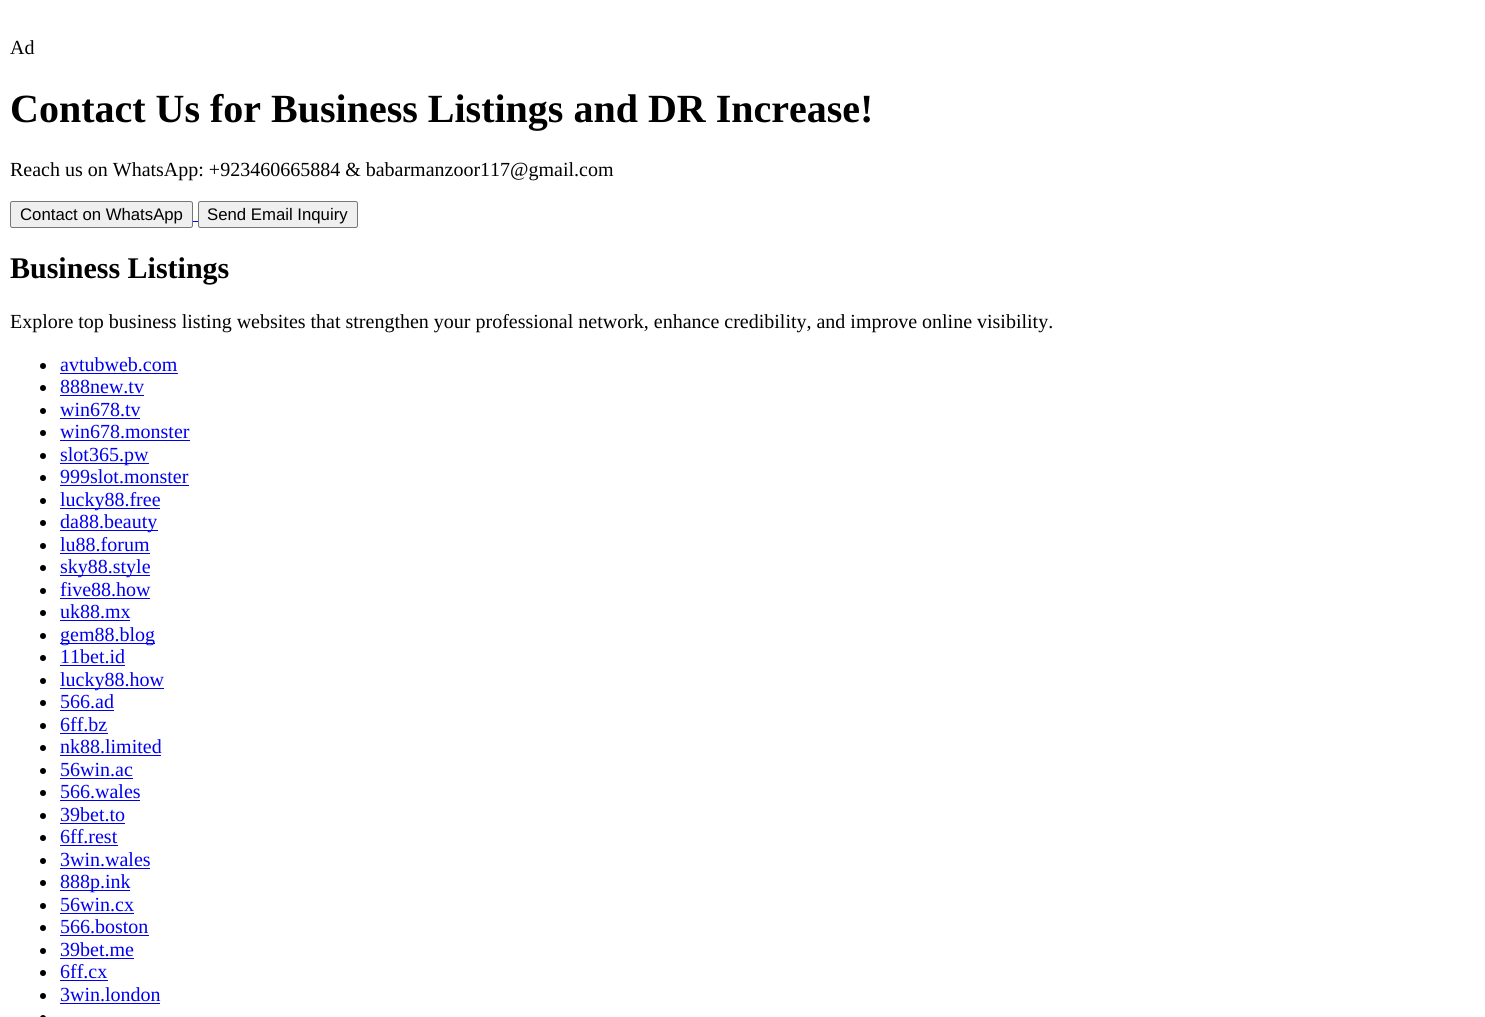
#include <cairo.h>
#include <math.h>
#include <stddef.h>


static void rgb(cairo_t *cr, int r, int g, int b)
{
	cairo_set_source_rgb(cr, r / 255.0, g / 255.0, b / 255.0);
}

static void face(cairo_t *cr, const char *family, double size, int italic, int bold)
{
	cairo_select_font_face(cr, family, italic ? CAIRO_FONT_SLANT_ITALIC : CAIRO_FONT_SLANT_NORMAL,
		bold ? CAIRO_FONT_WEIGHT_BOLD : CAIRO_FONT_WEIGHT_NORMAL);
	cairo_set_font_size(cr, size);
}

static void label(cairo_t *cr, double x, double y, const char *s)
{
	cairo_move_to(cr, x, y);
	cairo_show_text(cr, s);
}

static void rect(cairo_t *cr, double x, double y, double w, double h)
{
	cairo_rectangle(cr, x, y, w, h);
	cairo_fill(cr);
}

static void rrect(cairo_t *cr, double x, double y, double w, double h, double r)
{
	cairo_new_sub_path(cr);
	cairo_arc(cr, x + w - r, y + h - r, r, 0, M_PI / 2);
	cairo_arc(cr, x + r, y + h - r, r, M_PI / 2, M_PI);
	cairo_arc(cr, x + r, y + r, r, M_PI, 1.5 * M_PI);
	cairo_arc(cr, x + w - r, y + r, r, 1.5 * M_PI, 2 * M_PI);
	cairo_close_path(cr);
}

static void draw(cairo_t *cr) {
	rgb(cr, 255, 255, 255);
	cairo_paint(cr);
	face(cr, "Liberation Serif", 20, 0, 0);
	rgb(cr, 0, 0, 0);
	label(cr, 10, 54, "Ad");
	face(cr, "Liberation Serif", 40, 0, 1);
	label(cr, 10, 122, "Contact Us for Business Listings and DR Increase!");
	face(cr, "Liberation Serif", 20, 0, 0);
	label(cr, 10, 176, "Reach us on WhatsApp: +923460665884 & babarmanzoor117@gmail.com");
	rgb(cr, 239, 239, 239);
	rrect(cr, 10.5, 201.5, 182, 26, 2);
	cairo_fill_preserve(cr);
	rgb(cr, 118, 118, 118);
	cairo_set_line_width(cr, 1);
	cairo_stroke(cr);
	face(cr, "Liberation Sans", 16.75, 0, 0);
	rgb(cr, 0, 0, 0);
	label(cr, 20, 220, "Contact on WhatsApp");
	rgb(cr, 0, 0, 238);
	rect(cr, 193, 221, 5, 1);
	rgb(cr, 239, 239, 239);
	rrect(cr, 198.5, 201.5, 159, 26, 2);
	cairo_fill_preserve(cr);
	rgb(cr, 118, 118, 118);
	cairo_stroke(cr);
	rgb(cr, 0, 0, 0);
	label(cr, 207, 220, "Send Email Inquiry");
	face(cr, "Liberation Serif", 30, 0, 1);
	label(cr, 10, 278, "Business Listings");
	face(cr, "Liberation Serif", 20, 0, 0);
	label(cr, 10, 328, "Explore top business listing websites that strengthen your professional network, enhance credibility, and improve online visibility.");
	cairo_new_path(cr);
	cairo_arc(cr, 43, 366, 3, 0, 2 * M_PI);
	cairo_fill(cr);
	rgb(cr, 0, 0, 238);
	label(cr, 60, 371, "avtubweb.com");
	rect(cr, 60, 373, 118, 1);
	rgb(cr, 0, 0, 0);
	cairo_new_path(cr);
	cairo_arc(cr, 43, 388, 3, 0, 2 * M_PI);
	cairo_fill(cr);
	rgb(cr, 0, 0, 238);
	label(cr, 60, 393, "888new.tv");
	rect(cr, 60, 395, 84, 1);
	rgb(cr, 0, 0, 0);
	cairo_new_path(cr);
	cairo_arc(cr, 43, 411, 3, 0, 2 * M_PI);
	cairo_fill(cr);
	rgb(cr, 0, 0, 238);
	label(cr, 60, 416, "win678.tv");
	rect(cr, 60, 418, 80, 1);
	rgb(cr, 0, 0, 0);
	cairo_new_path(cr);
	cairo_arc(cr, 43, 433, 3, 0, 2 * M_PI);
	cairo_fill(cr);
	rgb(cr, 0, 0, 238);
	label(cr, 60, 438, "win678.monster");
	rect(cr, 60, 440, 130, 1);
	rgb(cr, 0, 0, 0);
	cairo_new_path(cr);
	cairo_arc(cr, 43, 456, 3, 0, 2 * M_PI);
	cairo_fill(cr);
	rgb(cr, 0, 0, 238);
	rect(cr, 60, 463, 89, 1);
	label(cr, 60, 461, "slot365.pw");
	rgb(cr, 0, 0, 0);
	cairo_new_path(cr);
	cairo_arc(cr, 43, 478, 3, 0, 2 * M_PI);
	cairo_fill(cr);
	rgb(cr, 0, 0, 238);
	label(cr, 60, 483, "999slot.monster");
	rect(cr, 60, 485, 129, 1);
	rgb(cr, 0, 0, 0);
	cairo_new_path(cr);
	cairo_arc(cr, 43, 501, 3, 0, 2 * M_PI);
	cairo_fill(cr);
	rgb(cr, 0, 0, 238);
	rect(cr, 60, 508, 100, 1);
	label(cr, 60, 506, "lucky88.free");
	rgb(cr, 0, 0, 0);
	cairo_new_path(cr);
	cairo_arc(cr, 43, 523, 3, 0, 2 * M_PI);
	cairo_fill(cr);
	rgb(cr, 0, 0, 238);
	rect(cr, 60, 530, 98, 1);
	label(cr, 60, 528, "da88.beauty");
	rgb(cr, 0, 0, 0);
	cairo_new_path(cr);
	cairo_arc(cr, 43, 546, 3, 0, 2 * M_PI);
	cairo_fill(cr);
	rgb(cr, 0, 0, 238);
	label(cr, 60, 551, "lu88.forum");
	rect(cr, 60, 553, 90, 1);
	rgb(cr, 0, 0, 0);
	cairo_new_path(cr);
	cairo_arc(cr, 43, 568, 3, 0, 2 * M_PI);
	cairo_fill(cr);
	rgb(cr, 0, 0, 238);
	rect(cr, 60, 575, 90, 1);
	label(cr, 60, 573, "sky88.style");
	rgb(cr, 0, 0, 0);
	cairo_new_path(cr);
	cairo_arc(cr, 43, 591, 3, 0, 2 * M_PI);
	cairo_fill(cr);
	rgb(cr, 0, 0, 238);
	label(cr, 60, 596, "five88.how");
	rect(cr, 60, 598, 90, 1);
	rgb(cr, 0, 0, 0);
	cairo_new_path(cr);
	cairo_arc(cr, 43, 613, 3, 0, 2 * M_PI);
	cairo_fill(cr);
	rgb(cr, 0, 0, 238);
	label(cr, 60, 618, "uk88.mx");
	rect(cr, 60, 620, 70, 1);
	rgb(cr, 0, 0, 0);
	cairo_new_path(cr);
	cairo_arc(cr, 43, 636, 3, 0, 2 * M_PI);
	cairo_fill(cr);
	rgb(cr, 0, 0, 238);
	rect(cr, 60, 643, 95, 1);
	label(cr, 60, 641, "gem88.blog");
	rgb(cr, 0, 0, 0);
	cairo_new_path(cr);
	cairo_arc(cr, 43, 658, 3, 0, 2 * M_PI);
	cairo_fill(cr);
	rgb(cr, 0, 0, 238);
	label(cr, 60, 663, "11bet.id");
	rect(cr, 60, 665, 65, 1);
	rgb(cr, 0, 0, 0);
	cairo_new_path(cr);
	cairo_arc(cr, 43, 681, 3, 0, 2 * M_PI);
	cairo_fill(cr);
	rgb(cr, 0, 0, 238);
	rect(cr, 60, 688, 104, 1);
	label(cr, 60, 686, "lucky88.how");
	rgb(cr, 0, 0, 0);
	cairo_new_path(cr);
	cairo_arc(cr, 43, 703, 3, 0, 2 * M_PI);
	cairo_fill(cr);
	rgb(cr, 0, 0, 238);
	label(cr, 60, 708, "566.ad");
	rect(cr, 60, 710, 54, 1);
	rgb(cr, 0, 0, 0);
	cairo_new_path(cr);
	cairo_arc(cr, 43, 726, 3, 0, 2 * M_PI);
	cairo_fill(cr);
	rgb(cr, 0, 0, 238);
	label(cr, 60, 731, "6ff.bz");
	rect(cr, 60, 733, 48, 1);
	rgb(cr, 0, 0, 0);
	cairo_new_path(cr);
	cairo_arc(cr, 43, 748, 3, 0, 2 * M_PI);
	cairo_fill(cr);
	rgb(cr, 0, 0, 238);
	label(cr, 60, 753, "nk88.limited");
	rect(cr, 60, 755, 101, 1);
	rgb(cr, 0, 0, 0);
	cairo_new_path(cr);
	cairo_arc(cr, 43, 771, 3, 0, 2 * M_PI);
	cairo_fill(cr);
	rgb(cr, 0, 0, 238);
	label(cr, 60, 776, "56win.ac");
	rect(cr, 60, 778, 73, 1);
	rgb(cr, 0, 0, 0);
	cairo_new_path(cr);
	cairo_arc(cr, 43, 793, 3, 0, 2 * M_PI);
	cairo_fill(cr);
	rgb(cr, 0, 0, 238);
	label(cr, 60, 798, "566.wales");
	rect(cr, 60, 800, 80, 1);
	rgb(cr, 0, 0, 0);
	cairo_new_path(cr);
	cairo_arc(cr, 43, 816, 3, 0, 2 * M_PI);
	cairo_fill(cr);
	rgb(cr, 0, 0, 238);
	label(cr, 60, 821, "39bet.to");
	rect(cr, 60, 823, 65, 1);
	rgb(cr, 0, 0, 0);
	cairo_new_path(cr);
	cairo_arc(cr, 43, 838, 3, 0, 2 * M_PI);
	cairo_fill(cr);
	rgb(cr, 0, 0, 238);
	label(cr, 60, 843, "6ff.rest");
	rect(cr, 60, 845, 58, 1);
	rgb(cr, 0, 0, 0);
	cairo_new_path(cr);
	cairo_arc(cr, 43, 861, 3, 0, 2 * M_PI);
	cairo_fill(cr);
	rgb(cr, 0, 0, 238);
	label(cr, 60, 866, "3win.wales");
	rect(cr, 60, 868, 90, 1);
	rgb(cr, 0, 0, 0);
	cairo_new_path(cr);
	cairo_arc(cr, 43, 883, 3, 0, 2 * M_PI);
	cairo_fill(cr);
	rgb(cr, 0, 0, 238);
	rect(cr, 60, 890, 70, 1);
	label(cr, 60, 888, "888p.ink");
	rgb(cr, 0, 0, 0);
	cairo_new_path(cr);
	cairo_arc(cr, 43, 906, 3, 0, 2 * M_PI);
	cairo_fill(cr);
	rgb(cr, 0, 0, 238);
	label(cr, 60, 911, "56win.cx");
	rect(cr, 60, 913, 74, 1);
	rgb(cr, 0, 0, 0);
	cairo_new_path(cr);
	cairo_arc(cr, 43, 928, 3, 0, 2 * M_PI);
	cairo_fill(cr);
	rgb(cr, 0, 0, 238);
	label(cr, 60, 933, "566.boston");
	rect(cr, 60, 935, 89, 1);
	rgb(cr, 0, 0, 0);
	cairo_new_path(cr);
	cairo_arc(cr, 43, 951, 3, 0, 2 * M_PI);
	cairo_fill(cr);
	rgb(cr, 0, 0, 238);
	label(cr, 60, 956, "39bet.me");
	rect(cr, 60, 958, 74, 1);
	rgb(cr, 0, 0, 0);
	cairo_new_path(cr);
	cairo_arc(cr, 43, 973, 3, 0, 2 * M_PI);
	cairo_fill(cr);
	rgb(cr, 0, 0, 238);
	label(cr, 60, 978, "6ff.cx");
	rect(cr, 60, 980, 48, 1);
	rgb(cr, 0, 0, 0);
	cairo_new_path(cr);
	cairo_arc(cr, 43, 996, 3, 0, 2 * M_PI);
	cairo_fill(cr);
	rgb(cr, 0, 0, 238);
	label(cr, 60, 1001, "3win.london");
	rect(cr, 60, 1003, 100, 1);
	rgb(cr, 0, 0, 0);
	rrect(cr, 40, 1015, 6, 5, 3);
	cairo_fill(cr);
}

int main(void) {
	cairo_surface_t *surface = cairo_image_surface_create(CAIRO_FORMAT_RGB24, 1485, 1017);
	cairo_t *cr = cairo_create(surface);
	cairo_font_options_t *options = cairo_font_options_create();
	cairo_font_options_set_hint_metrics(options, CAIRO_HINT_METRICS_OFF);
	cairo_font_options_set_hint_style(options, CAIRO_HINT_STYLE_NONE);
	cairo_set_font_options(cr, options);
	cairo_set_miter_limit(cr, 4);
	draw(cr);
	cairo_surface_write_to_png(surface, "render.png");
	cairo_font_options_destroy(options);
	cairo_destroy(cr);
	cairo_surface_destroy(surface);
	return 0;
}
